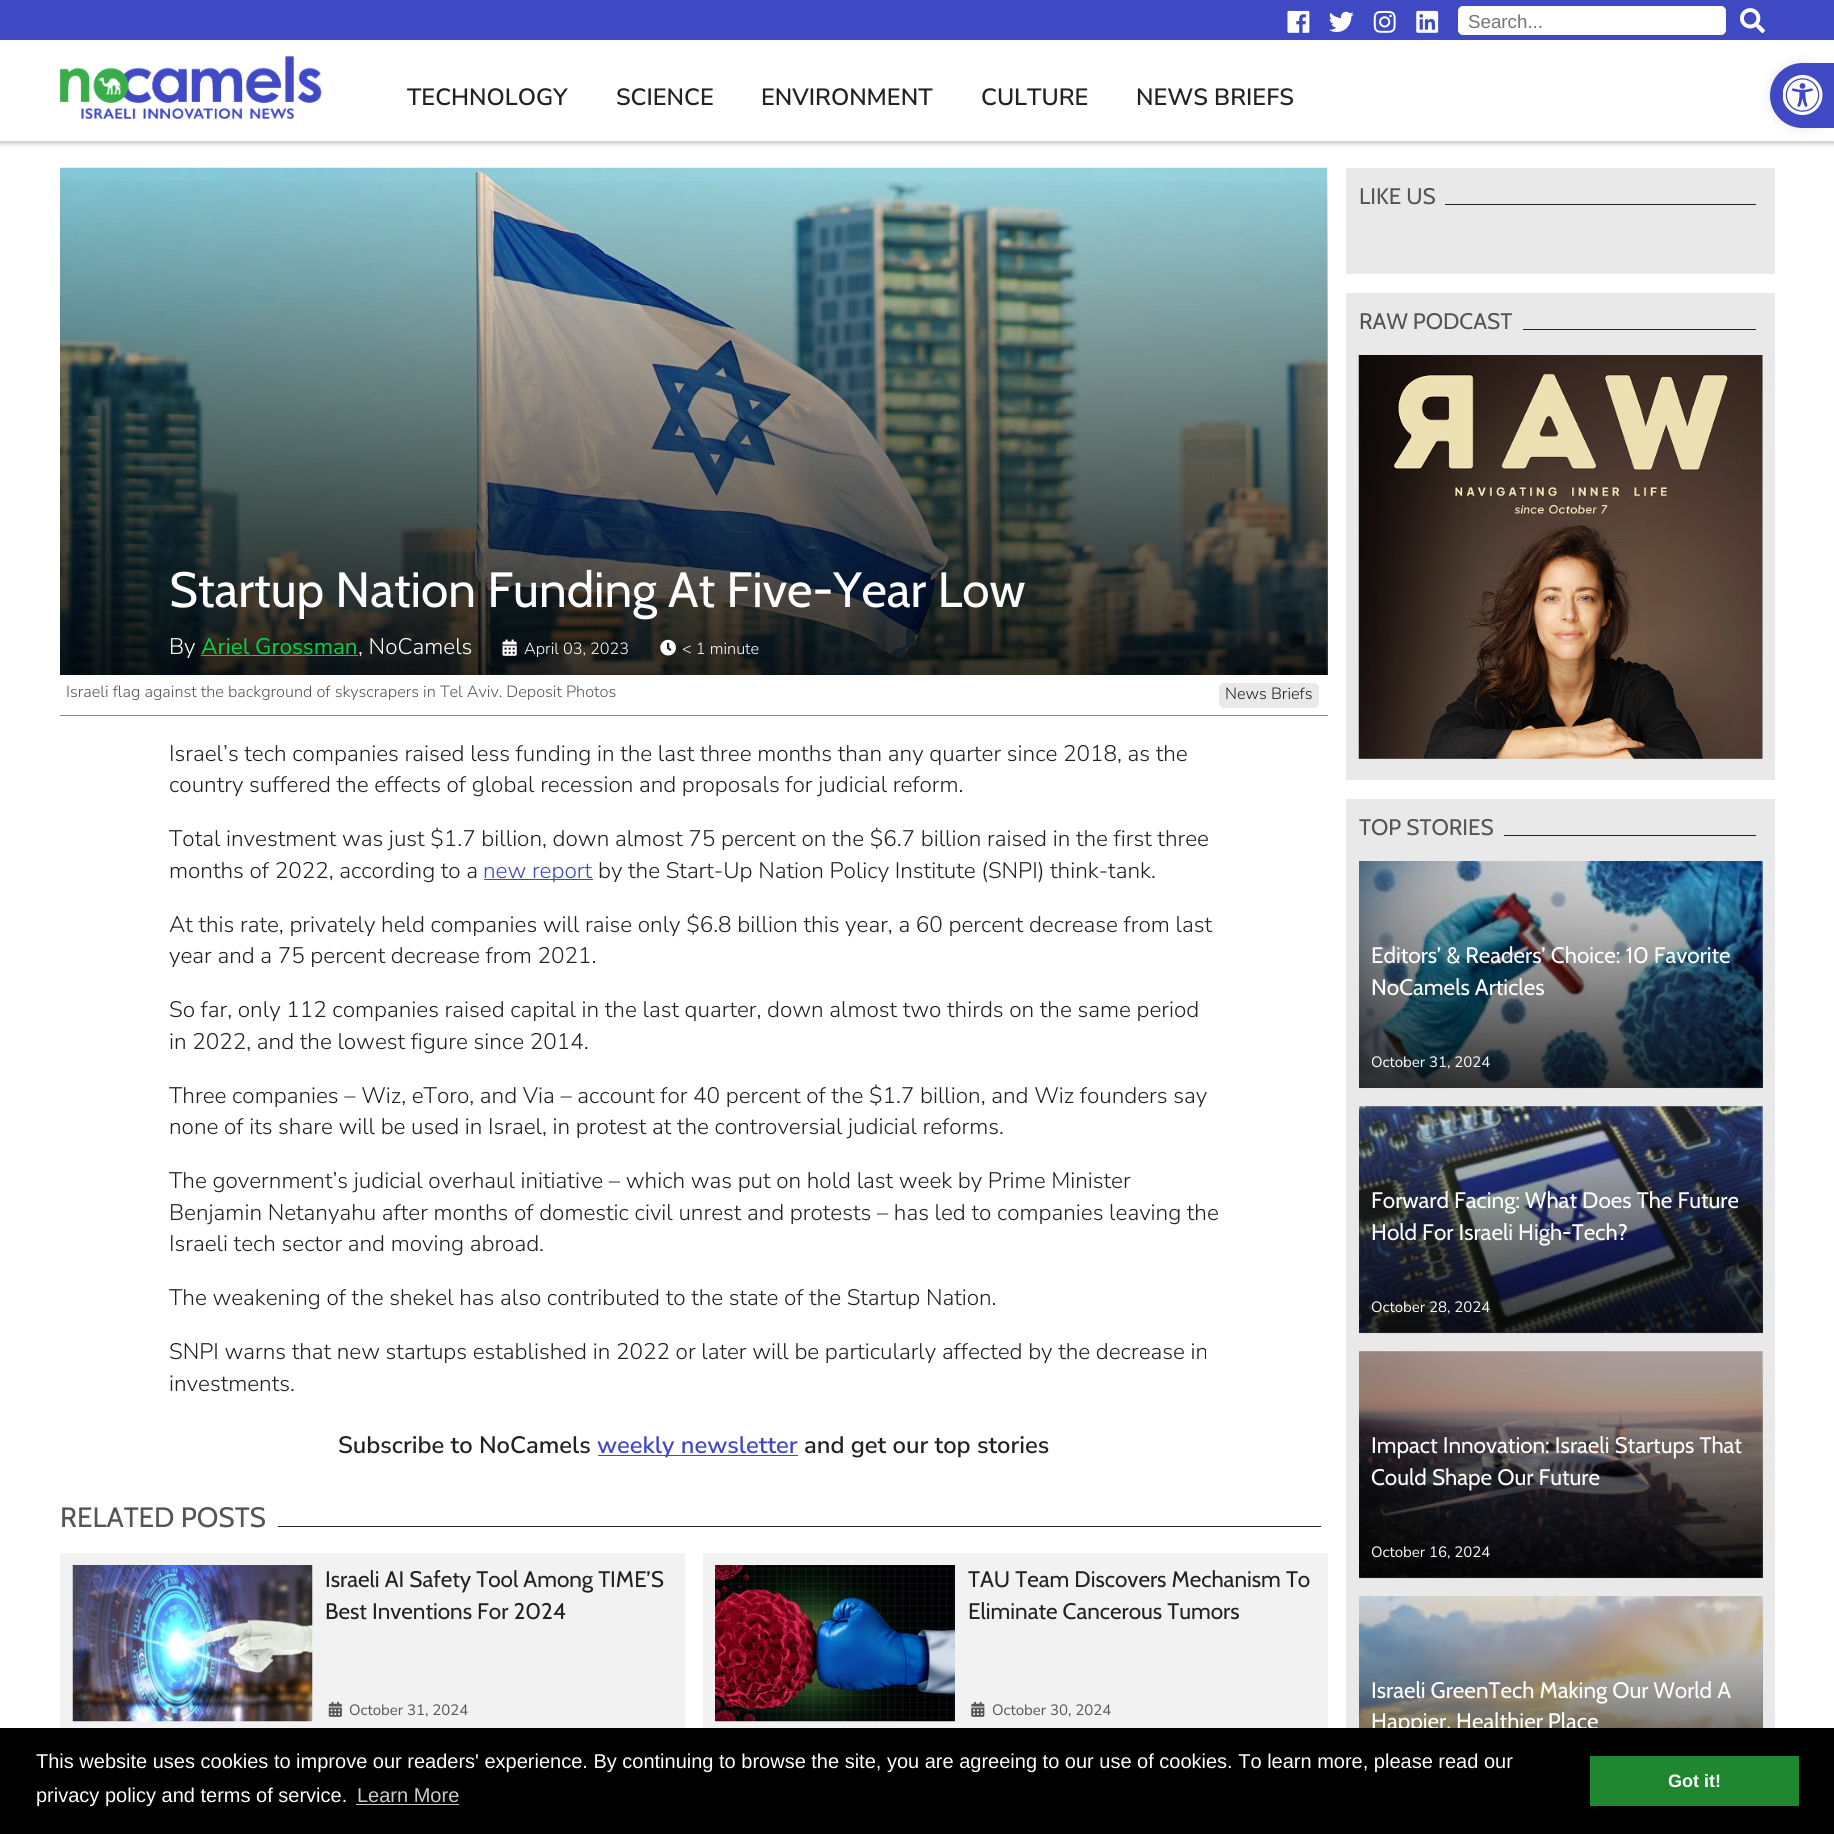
#include <cairo.h>
#include <math.h>
#include <stddef.h>


static void rgb(cairo_t *cr, int r, int g, int b)
{
	cairo_set_source_rgb(cr, r / 255.0, g / 255.0, b / 255.0);
}

static void face(cairo_t *cr, const char *family, double size, int italic, int bold)
{
	cairo_select_font_face(cr, family, italic ? CAIRO_FONT_SLANT_ITALIC : CAIRO_FONT_SLANT_NORMAL,
		bold ? CAIRO_FONT_WEIGHT_BOLD : CAIRO_FONT_WEIGHT_NORMAL);
	cairo_set_font_size(cr, size);
}

static void label(cairo_t *cr, double x, double y, const char *s)
{
	cairo_move_to(cr, x, y);
	cairo_show_text(cr, s);
}

static void rect(cairo_t *cr, double x, double y, double w, double h)
{
	cairo_rectangle(cr, x, y, w, h);
	cairo_fill(cr);
}

static void rrect(cairo_t *cr, double x, double y, double w, double h, double r)
{
	cairo_new_sub_path(cr);
	cairo_arc(cr, x + w - r, y + h - r, r, 0, M_PI / 2);
	cairo_arc(cr, x + r, y + h - r, r, M_PI / 2, M_PI);
	cairo_arc(cr, x + r, y + r, r, M_PI, 1.5 * M_PI);
	cairo_arc(cr, x + w - r, y + r, r, 1.5 * M_PI, 2 * M_PI);
	cairo_close_path(cr);
}

static void soft_shadow(cairo_t *cr, double x, double y, double w, double h, double r, double blur, double alpha)
{
	cairo_push_group_with_content(cr, CAIRO_CONTENT_ALPHA);
	cairo_set_operator(cr, CAIRO_OPERATOR_SOURCE);
	for (int i = 15; i >= -15 && fmin(w, h) + blur * i / 3 > 0; i -= 2) {
		double e = blur * i / 6;
		cairo_set_source_rgba(cr, 0, 0, 0, alpha * erfc((i - 1) / 8.5) / 2);
		rrect(cr, x - e, y - e, w + 2 * e, h + 2 * e, fmax(0, fmin(r + e + blur * .6, fmin(w, h) / 2 + e)));
		cairo_fill(cr);
	}
	cairo_pattern_t *soft = cairo_pop_group(cr);
	cairo_mask(cr, soft);
	cairo_pattern_destroy(soft);
}

static void image(cairo_t *cr, const char *path, double x, double y, double w, double h)
{
	cairo_surface_t *image = cairo_image_surface_create_from_png(path);
	cairo_save(cr);
	cairo_set_source_surface(cr, image, x, y);
	cairo_rectangle(cr, x, y, w, h);
	cairo_fill(cr);
	cairo_restore(cr);
	cairo_surface_destroy(image);
}

static void draw(cairo_t *cr) {
	cairo_pattern_t *gradient;
	rgb(cr, 255, 255, 255);
	cairo_paint(cr);
	rgb(cr, 64, 73, 196);
	rect(cr, 0, 0, 1834, 40);
	image(cr, "image0.png", 1287, 10, 23, 23);
	image(cr, "image1.png", 1329, 11, 25, 21);
	image(cr, "image2.png", 1373, 10, 23, 23);
	image(cr, "image3.png", 1416, 10, 23, 23);
	rgb(cr, 255, 255, 255);
	rrect(cr, 1458.5, 6.5, 267, 28, 4.5);
	cairo_fill_preserve(cr);
	cairo_set_line_width(cr, 1);
	cairo_stroke(cr);
	face(cr, "Liberation Sans", 18.75, 0, 0);
	rgb(cr, 117, 117, 117);
	label(cr, 1468, 28, "Search...");
	image(cr, "image4.png", 1740, 8, 25, 26);
	cairo_save(cr);
	cairo_rectangle(cr, 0, 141, 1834, 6);
	cairo_clip(cr);
	rgb(cr, 0, 0, 0);
	soft_shadow(cr, 0, 43, 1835, 101, 0, 2, 0.2);
	cairo_restore(cr);
	image(cr, "image5.png", 60, 56, 262, 63);
	face(cr, "Nunito Sans SemiBold", 23.5, 0, 0);
	rgb(cr, 34, 34, 34);
	label(cr, 407, 105, "TECHNOLOGY");
	label(cr, 616, 105, "SCIENCE");
	label(cr, 761, 105, "ENVIRONMENT");
	label(cr, 981, 105, "CULTURE");
	label(cr, 1136, 105, "NEWS BRIEFS");
	rgb(cr, 0, 0, 0);
	soft_shadow(cr, 1770, 63, 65, 65, 32.5, 6, 0.1);
	rgb(cr, 64, 73, 196);
	cairo_new_path(cr);
	cairo_move_to(cr, 1802.5, 63);
	cairo_line_to(cr, 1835, 63);
	cairo_line_to(cr, 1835, 128);
	cairo_line_to(cr, 1802.5, 128);
	cairo_curve_to(cr, 1784.5, 128, 1770, 113.5, 1770, 95.5);
	cairo_curve_to(cr, 1770, 77.5, 1784.5, 63, 1802.5, 63);
	cairo_close_path(cr);
	cairo_fill(cr);
	image(cr, "image6.png", 1783, 75, 40, 40);
	image(cr, "image7.png", 60, 167, 1268, 508);
	gradient = cairo_pattern_create_linear(694, 167, 694, 675);
	cairo_pattern_add_color_stop_rgba(gradient, 0, 0, 0, 0, 0);
	cairo_pattern_add_color_stop_rgba(gradient, 1, 0, 0, 0, 0.8);
	cairo_set_source(cr, gradient);
	cairo_pattern_destroy(gradient);
	rect(cr, 60, 181, 1268, 494);
	face(cr, "Cabin", 49.5, 0, 0);
	rgb(cr, 255, 255, 255);
	label(cr, 169, 607, "Startup Nation Funding At Five-Year Low");
	face(cr, "Nunito Sans Light", 22.5, 0, 0);
	label(cr, 169, 654, "By");
	face(cr, "Nunito Sans", 22.5, 0, 0);
	rgb(cr, 0, 212, 72);
	label(cr, 201, 654, "Ariel Grossman");
	face(cr, "Nunito Sans Light", 22.5, 0, 0);
	rgb(cr, 255, 255, 255);
	label(cr, 358, 654, ", NoCamels");
	rgb(cr, 0, 212, 72);
	rect(cr, 201, 655, 157, 1);
	image(cr, "image8.png", 502, 639, 15, 17);
	face(cr, "Nunito Sans Light", 16.25, 0, 0);
	rgb(cr, 255, 255, 255);
	label(cr, 524, 654, "April 03, 2023");
	image(cr, "image9.png", 660, 639, 16, 17);
	label(cr, 682, 654, "< 1 minute");
	rgb(cr, 136, 136, 136);
	rect(cr, 60, 715, 1268, 1);
	rgb(cr, 85, 85, 85);
	label(cr, 66, 697, "Israeli flag against the background of skyscrapers in Tel Aviv. Deposit Photos");
	rgb(cr, 233, 233, 233);
	rrect(cr, 1219, 683, 100, 25, 5);
	cairo_fill(cr);
	rgb(cr, 34, 34, 34);
	label(cr, 1225, 699, "News Briefs");
	face(cr, "Nunito Sans Light", 22.5, 0, 0);
	label(cr, 169, 761, "Israel’s tech companies raised less funding in the last three months than any quarter since 2018, as the");
	label(cr, 169, 792, "country suffered the effects of global recession and proposals for judicial reform.");
	label(cr, 169, 846, "Total investment was just $1.7 billion, down almost 75 percent on the $6.7 billion raised in the first three");
	label(cr, 169, 878, "months of 2022, according to a");
	rgb(cr, 64, 73, 196);
	rect(cr, 484, 879, 109, 1);
	label(cr, 483, 878, "new report");
	rgb(cr, 34, 34, 34);
	label(cr, 598, 878, "by the Start-Up Nation Policy Institute (SNPI) think-tank.");
	label(cr, 169, 932, "At this rate, privately held companies will raise only $6.8 billion this year, a 60 percent decrease from last");
	label(cr, 169, 963, "year and a 75 percent decrease from 2021.");
	label(cr, 169, 1017, "So far, only 112 companies raised capital in the last quarter, down almost two thirds on the same period");
	label(cr, 169, 1049, "in 2022, and the lowest figure since 2014.");
	label(cr, 169, 1103, "Three companies – Wiz, eToro, and Via – account for 40 percent of the $1.7 billion, and Wiz founders say");
	label(cr, 169, 1134, "none of its share will be used in Israel, in protest at the controversial judicial reforms.");
	label(cr, 169, 1188, "The government’s judicial overhaul initiative – which was put on hold last week by Prime Minister");
	label(cr, 169, 1220, "Benjamin Netanyahu after months of domestic civil unrest and protests – has led to companies leaving the");
	label(cr, 169, 1251, "Israeli tech sector and moving abroad.");
	label(cr, 169, 1305, "The weakening of the shekel has also contributed to the state of the Startup Nation.");
	label(cr, 169, 1359, "SNPI warns that new startups established in 2022 or later will be particularly affected by the decrease in");
	label(cr, 169, 1391, "investments.");
	face(cr, "Nunito Sans SemiBold", 23.75, 0, 0);
	label(cr, 338, 1453, "Subscribe to NoCamels");
	rgb(cr, 64, 73, 196);
	rect(cr, 598, 1455, 200, 1);
	label(cr, 597, 1453, "weekly newsletter");
	rgb(cr, 34, 34, 34);
	label(cr, 804, 1453, "and get our top stories");
	rect(cr, 278, 1526, 1043, 1);
	face(cr, "Cabin", 28, 0, 0);
	rgb(cr, 85, 85, 85);
	label(cr, 60, 1527, "RELATED POSTS");
	rgb(cr, 242, 242, 242);
	rect(cr, 60, 1553, 625, 175);
	image(cr, "image10.png", 72, 1565, 241, 157);
	face(cr, "Cabin", 22.5, 0, 0);
	rgb(cr, 34, 34, 34);
	label(cr, 325, 1587, "Israeli AI Safety Tool Among TIME’S");
	label(cr, 325, 1619, "Best Inventions For 2024");
	image(cr, "image11.png", 328, 1701, 14, 16);
	face(cr, "Nunito Sans", 15, 0, 0);
	rgb(cr, 85, 85, 85);
	label(cr, 349, 1715, "October 31, 2024");
	rgb(cr, 242, 242, 242);
	rect(cr, 703, 1553, 625, 175);
	image(cr, "image12.png", 715, 1565, 240, 157);
	face(cr, "Cabin", 22.5, 0, 0);
	rgb(cr, 34, 34, 34);
	label(cr, 968, 1587, "TAU Team Discovers Mechanism To");
	label(cr, 968, 1619, "Eliminate Cancerous Tumors");
	image(cr, "image13.png", 971, 1701, 14, 16);
	face(cr, "Nunito Sans", 15, 0, 0);
	rgb(cr, 85, 85, 85);
	label(cr, 992, 1715, "October 30, 2024");
	rgb(cr, 233, 233, 233);
	rect(cr, 1346, 168, 429, 106);
	rgb(cr, 34, 34, 34);
	rect(cr, 1445, 204, 311, 1);
	face(cr, "Cabin", 22.5, 0, 0);
	rgb(cr, 85, 85, 85);
	label(cr, 1359, 204, "LIKE US");
	rgb(cr, 233, 233, 233);
	rect(cr, 1346, 293, 429, 487);
	rgb(cr, 34, 34, 34);
	rect(cr, 1523, 329, 233, 1);
	rgb(cr, 85, 85, 85);
	label(cr, 1359, 329, "RAW PODCAST");
	image(cr, "image14.png", 1358, 355, 405, 404);
	rgb(cr, 233, 233, 233);
	rect(cr, 1346, 799, 429, 929);
	rgb(cr, 34, 34, 34);
	rect(cr, 1504, 835, 252, 1);
	rgb(cr, 85, 85, 85);
	label(cr, 1359, 835, "TOP STORIES");
	image(cr, "image15.png", 1359, 861, 404, 228);
	gradient = cairo_pattern_create_linear(1561, 861, 1561, 1088);
	cairo_pattern_add_color_stop_rgba(gradient, 0, 0, 0, 0, 0.08);
	cairo_pattern_add_color_stop_rgba(gradient, 1, 0, 0, 0, 0.8);
	cairo_set_source(cr, gradient);
	cairo_pattern_destroy(gradient);
	rect(cr, 1359, 861, 404, 227);
	rgb(cr, 255, 255, 255);
	label(cr, 1371, 963, "Editors’ & Readers’ Choice: 10 Favorite");
	label(cr, 1371, 995, "NoCamels Articles");
	face(cr, "Nunito Sans", 15, 0, 0);
	label(cr, 1371, 1067, "October 31, 2024");
	image(cr, "image16.png", 1359, 1106, 404, 228);
	gradient = cairo_pattern_create_linear(1561, 1106, 1561, 1333);
	cairo_pattern_add_color_stop_rgba(gradient, 0, 0, 0, 0, 0.08);
	cairo_pattern_add_color_stop_rgba(gradient, 1, 0, 0, 0, 0.8);
	cairo_set_source(cr, gradient);
	cairo_pattern_destroy(gradient);
	rect(cr, 1359, 1106, 404, 227);
	face(cr, "Cabin", 22.5, 0, 0);
	rgb(cr, 255, 255, 255);
	label(cr, 1371, 1208, "Forward Facing: What Does The Future");
	label(cr, 1371, 1240, "Hold For Israeli High-Tech?");
	face(cr, "Nunito Sans", 15, 0, 0);
	label(cr, 1371, 1312, "October 28, 2024");
	image(cr, "image17.png", 1359, 1351, 404, 228);
	gradient = cairo_pattern_create_linear(1561, 1351, 1561, 1578);
	cairo_pattern_add_color_stop_rgba(gradient, 0, 0, 0, 0, 0.08);
	cairo_pattern_add_color_stop_rgba(gradient, 1, 0, 0, 0, 0.8);
	cairo_set_source(cr, gradient);
	cairo_pattern_destroy(gradient);
	rect(cr, 1359, 1351, 404, 227);
	face(cr, "Cabin", 22.5, 0, 0);
	rgb(cr, 255, 255, 255);
	label(cr, 1371, 1453, "Impact Innovation: Israeli Startups That");
	label(cr, 1371, 1485, "Could Shape Our Future");
	face(cr, "Nunito Sans", 15, 0, 0);
	label(cr, 1371, 1557, "October 16, 2024");
	image(cr, "image18.png", 1359, 1596, 404, 132);
	gradient = cairo_pattern_create_linear(1561, 1596, 1561, 1823);
	cairo_pattern_add_color_stop_rgba(gradient, 0, 0, 0, 0, 0.08);
	cairo_pattern_add_color_stop_rgba(gradient, 1, 0, 0, 0, 0.8);
	cairo_set_source(cr, gradient);
	cairo_pattern_destroy(gradient);
	rect(cr, 1359, 1596, 404, 132);
	face(cr, "Cabin", 22.5, 0, 0);
	rgb(cr, 255, 255, 255);
	label(cr, 1371, 1698, "Israeli GreenTech Making Our World A");
	label(cr, 1371, 1729, "Happier, Healthier Place");
	rgb(cr, 0, 0, 0);
	rect(cr, 0, 1728, 1834, 106);
	face(cr, "Liberation Sans", 20, 0, 0);
	rgb(cr, 255, 255, 255);
	label(cr, 36, 1768, "This website uses cookies to improve our readers' experience. By continuing to browse the site, you are agreeing to our use of cookies. To learn more, please read our");
	label(cr, 36, 1802, "privacy policy and terms of service.");
	rgb(cr, 204, 204, 204);
	label(cr, 357, 1802, "Learn More");
	rect(cr, 356, 1804, 103, 1);
	rgb(cr, 31, 135, 47);
	rect(cr, 1590, 1756, 209, 50);
	face(cr, "Liberation Sans", 18, 0, 1);
	rgb(cr, 255, 255, 255);
	label(cr, 1668, 1787, "Got it!");
}

int main(void) {
	cairo_surface_t *surface = cairo_image_surface_create(CAIRO_FORMAT_RGB24, 1834, 1834);
	cairo_t *cr = cairo_create(surface);
	cairo_font_options_t *options = cairo_font_options_create();
	cairo_font_options_set_hint_metrics(options, CAIRO_HINT_METRICS_OFF);
	cairo_font_options_set_hint_style(options, CAIRO_HINT_STYLE_NONE);
	cairo_set_font_options(cr, options);
	cairo_set_miter_limit(cr, 4);
	draw(cr);
	cairo_surface_write_to_png(surface, "render.png");
	cairo_font_options_destroy(options);
	cairo_destroy(cr);
	cairo_surface_destroy(surface);
	return 0;
}
